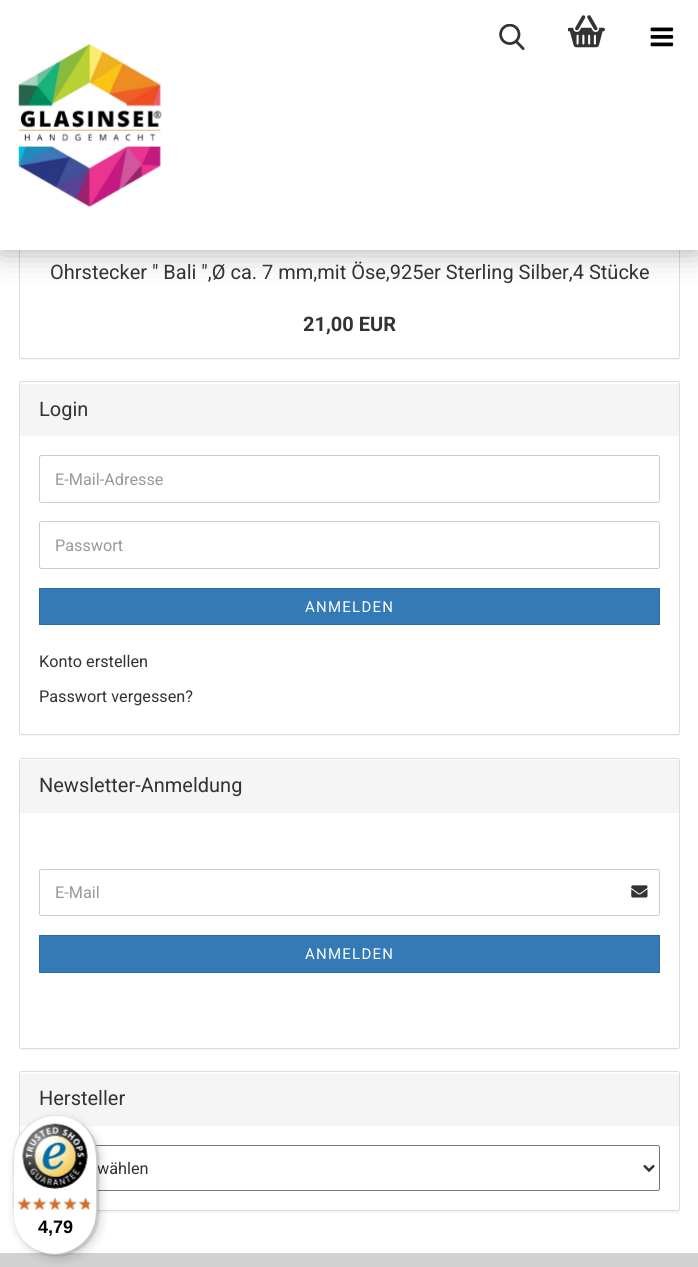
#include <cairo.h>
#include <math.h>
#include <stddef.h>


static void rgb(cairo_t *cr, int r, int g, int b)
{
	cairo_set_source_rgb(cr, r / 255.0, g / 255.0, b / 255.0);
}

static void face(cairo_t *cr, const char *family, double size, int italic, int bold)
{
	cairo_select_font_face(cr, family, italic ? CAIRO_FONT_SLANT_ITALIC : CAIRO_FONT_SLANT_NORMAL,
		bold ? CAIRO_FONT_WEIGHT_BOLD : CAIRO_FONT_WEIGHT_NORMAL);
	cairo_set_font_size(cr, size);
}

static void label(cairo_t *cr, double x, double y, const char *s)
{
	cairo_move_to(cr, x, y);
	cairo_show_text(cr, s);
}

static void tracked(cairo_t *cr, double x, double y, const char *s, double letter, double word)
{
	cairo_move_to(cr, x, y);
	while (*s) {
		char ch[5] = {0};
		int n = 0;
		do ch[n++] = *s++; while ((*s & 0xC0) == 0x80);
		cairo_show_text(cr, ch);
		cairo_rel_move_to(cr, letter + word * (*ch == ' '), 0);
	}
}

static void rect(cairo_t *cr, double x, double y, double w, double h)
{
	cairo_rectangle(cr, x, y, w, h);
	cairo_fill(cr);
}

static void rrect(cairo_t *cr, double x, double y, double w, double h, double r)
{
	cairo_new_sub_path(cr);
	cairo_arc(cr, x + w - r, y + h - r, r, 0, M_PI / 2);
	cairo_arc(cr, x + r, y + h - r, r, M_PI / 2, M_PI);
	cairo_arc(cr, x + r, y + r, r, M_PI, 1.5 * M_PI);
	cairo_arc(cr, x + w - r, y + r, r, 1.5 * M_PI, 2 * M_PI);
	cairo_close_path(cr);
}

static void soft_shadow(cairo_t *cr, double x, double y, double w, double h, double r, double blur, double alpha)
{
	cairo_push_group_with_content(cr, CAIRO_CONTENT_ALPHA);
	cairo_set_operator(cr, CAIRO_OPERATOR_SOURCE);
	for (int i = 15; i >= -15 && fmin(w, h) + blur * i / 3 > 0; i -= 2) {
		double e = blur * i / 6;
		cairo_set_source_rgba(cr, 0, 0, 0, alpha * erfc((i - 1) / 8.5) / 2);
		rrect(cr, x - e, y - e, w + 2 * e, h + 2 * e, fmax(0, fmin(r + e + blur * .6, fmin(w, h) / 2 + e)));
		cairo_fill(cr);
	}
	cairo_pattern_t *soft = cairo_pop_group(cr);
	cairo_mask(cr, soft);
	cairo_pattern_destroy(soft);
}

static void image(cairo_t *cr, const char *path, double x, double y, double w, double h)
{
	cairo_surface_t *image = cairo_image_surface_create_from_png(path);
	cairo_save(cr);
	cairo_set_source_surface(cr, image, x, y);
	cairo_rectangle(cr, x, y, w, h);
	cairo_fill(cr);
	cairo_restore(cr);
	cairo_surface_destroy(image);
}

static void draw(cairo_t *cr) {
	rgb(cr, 255, 255, 255);
	cairo_paint(cr);
	rgb(cr, 0, 0, 0);
	soft_shadow(cr, 19, -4, 661, 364, 2.5, 0.5, 0.05);
	rgb(cr, 255, 255, 255);
	rrect(cr, 19.5, -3.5, 660, 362, 2);
	cairo_fill_preserve(cr);
	rgb(cr, 221, 221, 221);
	cairo_set_line_width(cr, 1);
	cairo_stroke(cr);
	rgb(cr, 0, 0, 0);
	soft_shadow(cr, 0, 0, 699, 250, 0, 15.5, 0.35);
	rgb(cr, 255, 255, 255);
	rect(cr, 0, 0, 698, 250);
	image(cr, "image0.png", 499, 24, 26, 26);
	image(cr, "image1.png", 568, 15, 37, 33);
	image(cr, "image2.png", 650, 27, 24, 20);
	image(cr, "image3.png", 18, 43, 144, 164);
	face(cr, "Roboto", 20, 0, 0);
	rgb(cr, 51, 51, 51);
	label(cr, 50, 279, "Ohrstecker \" Bali \",Ø ca. 7 mm,mit Öse,925er Sterling Silber,4 Stücke");
	face(cr, "Roboto", 20, 0, 1);
	label(cr, 303, 331, "21,00 EUR");
	rgb(cr, 0, 0, 0);
	soft_shadow(cr, 19, 383, 661, 353, 2.5, 0.5, 0.05);
	rgb(cr, 255, 255, 255);
	rrect(cr, 19.5, 381.5, 660, 353, 2);
	cairo_fill_preserve(cr);
	rgb(cr, 221, 221, 221);
	cairo_stroke(cr);
	rgb(cr, 245, 245, 245);
	cairo_new_path(cr);
	cairo_move_to(cr, 21, 383);
	cairo_line_to(cr, 678, 383);
	cairo_curve_to(cr, 678.5, 383, 679, 383.5, 679, 384);
	cairo_line_to(cr, 679, 436);
	cairo_line_to(cr, 20, 436);
	cairo_line_to(cr, 20, 384);
	cairo_curve_to(cr, 20, 383.5, 20.5, 383, 21, 383);
	cairo_close_path(cr);
	cairo_fill(cr);
	rgb(cr, 255, 255, 255);
	cairo_new_path(cr);
	cairo_move_to(cr, 21, 384);
	cairo_line_to(cr, 678, 384);
	cairo_line_to(cr, 679, 385);
	cairo_curve_to(cr, 679, 384, 679, 383, 678, 383);
	cairo_line_to(cr, 21, 383);
	cairo_curve_to(cr, 20, 383, 20, 384, 20, 385);
	cairo_close_path(cr);
	cairo_fill(cr);
	face(cr, "Roboto", 20, 0, 0);
	rgb(cr, 51, 51, 51);
	label(cr, 39, 416, "Login");
	rrect(cr, 39.5, 455.5, 620, 47, 2);
	rgb(cr, 204, 204, 204);
	cairo_stroke(cr);
	face(cr, "Roboto", 16.25, 0, 0);
	rgb(cr, 153, 153, 153);
	label(cr, 55, 485, "E-Mail-Adresse");
	rrect(cr, 39.5, 521.5, 620, 47, 2);
	rgb(cr, 204, 204, 204);
	cairo_stroke(cr);
	rgb(cr, 153, 153, 153);
	label(cr, 55, 551, "Passwort");
	rgb(cr, 51, 122, 183);
	cairo_rectangle(cr, 39.5, 588.5, 620, 36);
	cairo_fill_preserve(cr);
	rgb(cr, 45, 109, 163);
	cairo_stroke(cr);
	face(cr, "Roboto", 15, 0, 0);
	rgb(cr, 255, 255, 255);
	tracked(cr, 305, 612, "ANMELDEN", 1.25, 0);
	face(cr, "Roboto", 16.25, 0, 0);
	rgb(cr, 51, 51, 51);
	label(cr, 39, 667, "Konto erstellen");
	label(cr, 39, 702, "Passwort vergessen?");
	rgb(cr, 0, 0, 0);
	soft_shadow(cr, 19, 759, 661, 291, 2.5, 0.5, 0.05);
	rgb(cr, 255, 255, 255);
	rrect(cr, 19.5, 758.5, 660, 290, 2);
	cairo_fill_preserve(cr);
	rgb(cr, 221, 221, 221);
	cairo_stroke(cr);
	rgb(cr, 245, 245, 245);
	cairo_new_path(cr);
	cairo_move_to(cr, 21, 759);
	cairo_line_to(cr, 678, 759);
	cairo_curve_to(cr, 678.5, 759, 679, 759.5, 679, 760);
	cairo_line_to(cr, 679, 813);
	cairo_line_to(cr, 20, 813);
	cairo_line_to(cr, 20, 760);
	cairo_curve_to(cr, 20, 759.5, 20.5, 759, 21, 759);
	cairo_close_path(cr);
	cairo_fill(cr);
	rgb(cr, 255, 255, 255);
	cairo_new_path(cr);
	cairo_move_to(cr, 21, 760);
	cairo_line_to(cr, 678, 760);
	cairo_line_to(cr, 679, 761);
	cairo_curve_to(cr, 679, 760, 679, 759, 678, 759);
	cairo_line_to(cr, 21, 759);
	cairo_curve_to(cr, 20, 759, 20, 760, 20, 761);
	cairo_close_path(cr);
	cairo_fill(cr);
	face(cr, "Roboto", 20, 0, 0);
	rgb(cr, 51, 51, 51);
	label(cr, 39, 792, "Newsletter-Anmeldung");
	rrect(cr, 39.5, 869.5, 620, 46, 2);
	rgb(cr, 204, 204, 204);
	cairo_stroke(cr);
	face(cr, "Roboto", 16.25, 0, 0);
	rgb(cr, 153, 153, 153);
	label(cr, 55, 898, "E-Mail");
	image(cr, "image4.png", 631, 885, 17, 13);
	rgb(cr, 51, 122, 183);
	cairo_rectangle(cr, 39.5, 935.5, 620, 37);
	cairo_fill_preserve(cr);
	rgb(cr, 45, 109, 163);
	cairo_stroke(cr);
	face(cr, "Roboto", 15, 0, 0);
	rgb(cr, 255, 255, 255);
	tracked(cr, 305, 959, "ANMELDEN", 1.25, 0);
	rgb(cr, 0, 0, 0);
	soft_shadow(cr, 19, 1073, 661, 140, 2.5, 0.5, 0.05);
	rrect(cr, 19.5, 1071.5, 660, 139, 2);
	rgb(cr, 221, 221, 221);
	cairo_stroke(cr);
	rgb(cr, 245, 245, 245);
	cairo_new_path(cr);
	cairo_move_to(cr, 21, 1073);
	cairo_line_to(cr, 678, 1073);
	cairo_curve_to(cr, 678.5, 1073, 679, 1073.5, 679, 1074);
	cairo_line_to(cr, 679, 1126);
	cairo_line_to(cr, 20, 1126);
	cairo_line_to(cr, 20, 1074);
	cairo_curve_to(cr, 20, 1073.5, 20.5, 1073, 21, 1073);
	cairo_close_path(cr);
	cairo_fill(cr);
	rgb(cr, 255, 255, 255);
	cairo_new_path(cr);
	cairo_move_to(cr, 21, 1074);
	cairo_line_to(cr, 678, 1074);
	cairo_line_to(cr, 679, 1075);
	cairo_curve_to(cr, 679, 1074, 679, 1073, 678, 1073);
	cairo_line_to(cr, 21, 1073);
	cairo_curve_to(cr, 20, 1073, 20, 1074, 20, 1075);
	cairo_close_path(cr);
	cairo_fill(cr);
	face(cr, "Roboto", 20, 0, 0);
	rgb(cr, 51, 51, 51);
	label(cr, 39, 1105, "Hersteller");
	rgb(cr, 255, 255, 255);
	cairo_new_path(cr);
	cairo_move_to(cr, 20, 1126);
	cairo_line_to(cr, 679, 1126);
	cairo_line_to(cr, 679, 1207.5);
	cairo_curve_to(cr, 679, 1209, 678, 1210, 676.5, 1210);
	cairo_line_to(cr, 22.5, 1210);
	cairo_curve_to(cr, 21, 1210, 20, 1209, 20, 1207.5);
	cairo_close_path(cr);
	cairo_fill(cr);
	rrect(cr, 39.5, 1145.5, 620, 45, 2);
	rgb(cr, 118, 118, 118);
	cairo_stroke(cr);
	cairo_new_path(cr);
	cairo_move_to(cr, 644, 1165.5);
	cairo_line_to(cr, 649, 1170.5);
	cairo_line_to(cr, 654, 1165.5);
	rgb(cr, 51, 51, 51);
	cairo_set_line_width(cr, 2.5);
	cairo_stroke(cr);
	face(cr, "Roboto", 16.25, 0, 0);
	label(cr, 97, 1174, "wählen");
	rgb(cr, 209, 209, 209);
	rect(cr, 0, 1253, 698, 14);
	rgb(cr, 0, 0, 0);
	soft_shadow(cr, 16, 1119, 85, 140, 42.5, 5, 0.15);
	soft_shadow(cr, 14, 1116, 85, 140, 42.5, 1, 0.15);
	rgb(cr, 255, 255, 255);
	rrect(cr, 13, 1115, 85, 140, 42.5);
	cairo_fill(cr);
	cairo_set_source_rgba(cr, 0, 0, 0, 0.1);
	cairo_new_path(cr);
	cairo_move_to(cr, 56, 1116);
	cairo_curve_to(cr, 69, 1116, 80, 1121, 88, 1130);
	cairo_curve_to(cr, 67, 1106, 29, 1112, 16, 1141);
	cairo_curve_to(cr, 11, 1153, 13, 1171, 13, 1185);
	cairo_curve_to(cr, 13, 1204, 10, 1225, 24, 1241);
	cairo_curve_to(cr, 18, 1233, 14, 1224, 14, 1214);
	cairo_line_to(cr, 14, 1159);
	cairo_curve_to(cr, 14, 1135, 33, 1116, 56, 1116);
	cairo_close_path(cr);
	cairo_fill(cr);
	cairo_set_source_rgba(cr, 0, 0, 0, 0.2);
	cairo_new_path(cr);
	cairo_move_to(cr, 34, 1249);
	cairo_curve_to(cr, 59, 1264, 91, 1250, 97, 1221);
	cairo_curve_to(cr, 99, 1211, 98, 1196, 98, 1185);
	cairo_curve_to(cr, 98, 1159, 102, 1134, 75, 1120);
	cairo_curve_to(cr, 100, 1134, 96, 1159, 96, 1184);
	cairo_curve_to(cr, 96, 1194, 97, 1209, 95, 1220);
	cairo_curve_to(cr, 90, 1248, 59, 1262, 34, 1249);
	cairo_close_path(cr);
	cairo_fill(cr);
	cairo_set_source_rgba(cr, 0.196, 0.196, 0.196, 0.2);
	cairo_new_path(cr);
	cairo_move_to(cr, 27, 1244);
	cairo_curve_to(cr, 35, 1251, 45, 1255, 56, 1255);
	cairo_curve_to(cr, 79, 1255, 98, 1236, 98, 1212);
	cairo_line_to(cr, 98, 1158);
	cairo_curve_to(cr, 98, 1145, 92, 1133, 83, 1125);
	cairo_curve_to(cr, 101, 1141, 97, 1163, 97, 1184);
	cairo_curve_to(cr, 97, 1198, 99, 1216, 94, 1228);
	cairo_curve_to(cr, 82, 1254, 49, 1262, 27, 1244);
	cairo_close_path(cr);
	cairo_fill(cr);
	cairo_set_source_rgba(cr, 1, 1, 1, 0.3);
	cairo_new_path(cr);
	cairo_move_to(cr, 27, 1244);
	cairo_curve_to(cr, 35, 1251, 45, 1255, 56, 1255);
	cairo_curve_to(cr, 79, 1255, 98, 1236, 98, 1212);
	cairo_line_to(cr, 98, 1158);
	cairo_curve_to(cr, 98, 1145, 92, 1133, 83, 1125);
	cairo_curve_to(cr, 101, 1141, 97, 1163, 97, 1184);
	cairo_curve_to(cr, 97, 1198, 99, 1216, 94, 1228);
	cairo_curve_to(cr, 82, 1254, 49, 1262, 27, 1244);
	cairo_close_path(cr);
	cairo_fill(cr);
	image(cr, "image5.png", 22, 1123, 66, 66);
	image(cr, "image6.png", 17, 1197, 14, 13);
	image(cr, "image7.png", 34, 1197, 12, 13);
	image(cr, "image8.png", 49, 1198, 12, 12);
	image(cr, "image9.png", 64, 1197, 14, 13);
	image(cr, "image10.png", 79, 1198, 14, 12);
	image(cr, "image11.png", 17, 1197, 15, 13);
	image(cr, "image12.png", 32, 1197, 15, 13);
	image(cr, "image13.png", 48, 1197, 14, 13);
	image(cr, "image14.png", 63, 1197, 14, 13);
	image(cr, "image15.png", 78, 1197, 11, 13);
	face(cr, "Liberation Sans", 18, 0, 1);
	rgb(cr, 0, 0, 0);
	label(cr, 38, 1233, "4,79");
}

int main(void) {
	cairo_surface_t *surface = cairo_image_surface_create(CAIRO_FORMAT_RGB24, 698, 1267);
	cairo_t *cr = cairo_create(surface);
	cairo_font_options_t *options = cairo_font_options_create();
	cairo_font_options_set_hint_metrics(options, CAIRO_HINT_METRICS_OFF);
	cairo_font_options_set_hint_style(options, CAIRO_HINT_STYLE_NONE);
	cairo_set_font_options(cr, options);
	cairo_set_miter_limit(cr, 4);
	draw(cr);
	cairo_surface_write_to_png(surface, "render.png");
	cairo_font_options_destroy(options);
	cairo_destroy(cr);
	cairo_surface_destroy(surface);
	return 0;
}
